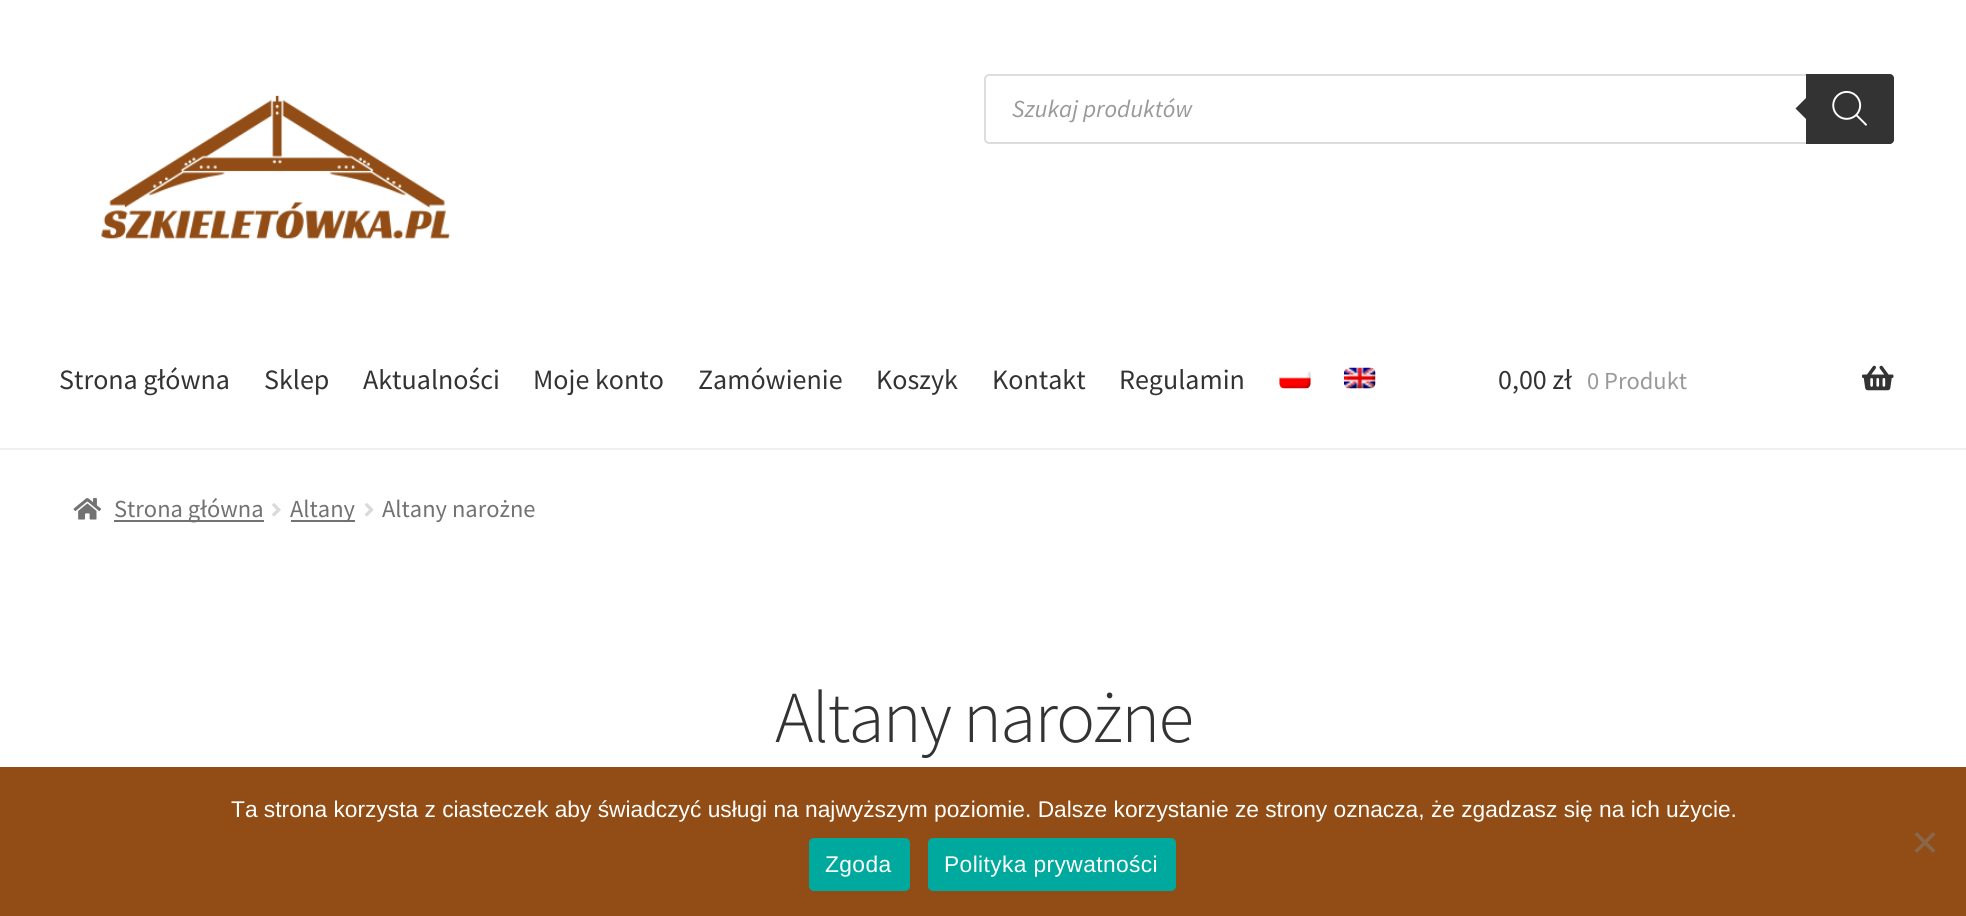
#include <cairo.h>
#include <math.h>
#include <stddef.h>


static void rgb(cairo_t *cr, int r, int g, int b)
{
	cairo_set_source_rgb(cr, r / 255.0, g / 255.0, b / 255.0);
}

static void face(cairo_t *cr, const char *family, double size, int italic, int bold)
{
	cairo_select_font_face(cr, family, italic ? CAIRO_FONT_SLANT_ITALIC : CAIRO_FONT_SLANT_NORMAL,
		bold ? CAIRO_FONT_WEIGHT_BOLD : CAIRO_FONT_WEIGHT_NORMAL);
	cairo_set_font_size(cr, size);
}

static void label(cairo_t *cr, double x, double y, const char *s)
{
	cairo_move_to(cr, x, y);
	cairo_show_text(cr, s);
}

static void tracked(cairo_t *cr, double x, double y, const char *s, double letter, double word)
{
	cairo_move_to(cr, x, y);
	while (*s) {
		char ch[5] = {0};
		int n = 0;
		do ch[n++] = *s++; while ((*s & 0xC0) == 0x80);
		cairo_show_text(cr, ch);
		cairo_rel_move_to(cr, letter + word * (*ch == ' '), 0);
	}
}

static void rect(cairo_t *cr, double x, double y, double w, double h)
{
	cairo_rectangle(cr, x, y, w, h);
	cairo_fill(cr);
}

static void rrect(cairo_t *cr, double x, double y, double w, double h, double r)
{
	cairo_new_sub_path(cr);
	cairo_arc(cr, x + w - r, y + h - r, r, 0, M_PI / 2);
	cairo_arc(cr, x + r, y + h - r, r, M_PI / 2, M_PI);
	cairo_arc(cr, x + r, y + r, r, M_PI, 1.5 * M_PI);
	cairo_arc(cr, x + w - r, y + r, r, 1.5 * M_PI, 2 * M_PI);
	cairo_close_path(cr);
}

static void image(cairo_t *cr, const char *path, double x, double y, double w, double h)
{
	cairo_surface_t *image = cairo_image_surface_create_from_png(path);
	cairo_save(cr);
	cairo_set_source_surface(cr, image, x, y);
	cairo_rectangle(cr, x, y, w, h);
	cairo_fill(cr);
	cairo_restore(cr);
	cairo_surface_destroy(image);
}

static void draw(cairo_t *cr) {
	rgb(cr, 255, 255, 255);
	cairo_paint(cr);
	rgb(cr, 240, 240, 240);
	rect(cr, 0, 448, 1966, 2);
	image(cr, "image0.png", 101, 95, 349, 144);
	rrect(cr, 985, 75, 908, 68, 4);
	rgb(cr, 221, 221, 221);
	cairo_stroke(cr);
	face(cr, "Source Sans Pro", 24.5, 1, 0);
	rgb(cr, 153, 153, 153);
	label(cr, 1012, 117, "Szukaj produktów");
	rgb(cr, 51, 51, 51);
	cairo_new_path(cr);
	cairo_move_to(cr, 1806, 74);
	cairo_line_to(cr, 1890, 74);
	cairo_curve_to(cr, 1892, 74, 1894, 76, 1894, 78);
	cairo_line_to(cr, 1894, 140);
	cairo_curve_to(cr, 1894, 142, 1892, 144, 1890, 144);
	cairo_line_to(cr, 1806, 144);
	cairo_close_path(cr);
	cairo_fill(cr);
	cairo_new_path(cr);
	cairo_move_to(cr, 1809.5, 94.5);
	cairo_line_to(cr, 1809.5, 122.5);
	cairo_line_to(cr, 1795.5, 108.5);
	cairo_close_path(cr);
	cairo_fill(cr);
	image(cr, "image1.png", 1832, 90, 35, 36);
	face(cr, "Source Sans Pro", 28, 0, 0);
	label(cr, 59, 389, "Strona główna");
	label(cr, 264, 389, "Sklep");
	label(cr, 363, 389, "Aktualności");
	label(cr, 533, 389, "Moje konto");
	label(cr, 698, 389, "Zamówienie");
	label(cr, 876, 389, "Koszyk");
	label(cr, 992, 389, "Kontakt");
	label(cr, 1119, 389, "Regulamin");
	image(cr, "image2.png", 1279, 371, 32, 18);
	image(cr, "image3.png", 1344, 367, 32, 22);
	label(cr, 1498, 389, "0,00 zł");
	face(cr, "Source Sans Pro", 24.5, 0, 0);
	rgb(cr, 153, 153, 153);
	label(cr, 1587, 389, "0 Produkt");
	image(cr, "image4.png", 1862, 365, 32, 26);
	image(cr, "image5.png", 73, 498, 28, 22);
	rgb(cr, 114, 114, 114);
	rect(cr, 114, 520, 150, 2);
	label(cr, 114, 517, "Strona główna");
	image(cr, "image6.png", 272, 503, 9, 14);
	rect(cr, 291, 520, 64, 2);
	label(cr, 290, 517, "Altany");
	image(cr, "image7.png", 364, 503, 10, 14);
	label(cr, 382, 517, "Altany narożne");
	face(cr, "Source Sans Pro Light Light", 73.25, 0, 0);
	rgb(cr, 51, 51, 51);
	tracked(cr, 775, 742, "Altany narożne", -1.75, 0);
	rgb(cr, 145, 77, 21);
	rect(cr, 0, 767, 1966, 149);
	face(cr, "Liberation Sans", 22.75, 0, 0);
	rgb(cr, 255, 255, 255);
	label(cr, 231, 817, "Ta strona korzysta z ciasteczek aby świadczyć usługi na najwyższym poziomie. Dalsze korzystanie ze strony oznacza, że zgadzasz się na ich użycie.");
	rgb(cr, 137, 103, 75);
	cairo_new_path(cr);
	cairo_move_to(cr, 1933, 832);
	cairo_line_to(cr, 1935.5, 834.5);
	cairo_line_to(cr, 1917, 853);
	cairo_line_to(cr, 1914.5, 850.5);
	cairo_close_path(cr);
	cairo_fill(cr);
	cairo_new_path(cr);
	cairo_move_to(cr, 1914.5, 834.5);
	cairo_line_to(cr, 1917, 832);
	cairo_line_to(cr, 1935.5, 850.5);
	cairo_line_to(cr, 1933, 853);
	cairo_close_path(cr);
	cairo_fill(cr);
	rgb(cr, 0, 169, 157);
	rrect(cr, 809, 838, 101, 53, 5);
	cairo_fill(cr);
	rgb(cr, 255, 255, 255);
	tracked(cr, 825, 872, "Zgoda", 0.4, 0);
	rgb(cr, 0, 169, 157);
	rrect(cr, 928, 838, 248, 53, 5);
	cairo_fill(cr);
	rgb(cr, 255, 255, 255);
	tracked(cr, 944, 872, "Polityka prywatności", 0.4, 0);
}

int main(void) {
	cairo_surface_t *surface = cairo_image_surface_create(CAIRO_FORMAT_RGB24, 1966, 916);
	cairo_t *cr = cairo_create(surface);
	cairo_font_options_t *options = cairo_font_options_create();
	cairo_font_options_set_hint_metrics(options, CAIRO_HINT_METRICS_OFF);
	cairo_font_options_set_hint_style(options, CAIRO_HINT_STYLE_NONE);
	cairo_set_font_options(cr, options);
	cairo_set_miter_limit(cr, 4);
	draw(cr);
	cairo_surface_write_to_png(surface, "render.png");
	cairo_font_options_destroy(options);
	cairo_destroy(cr);
	cairo_surface_destroy(surface);
	return 0;
}
